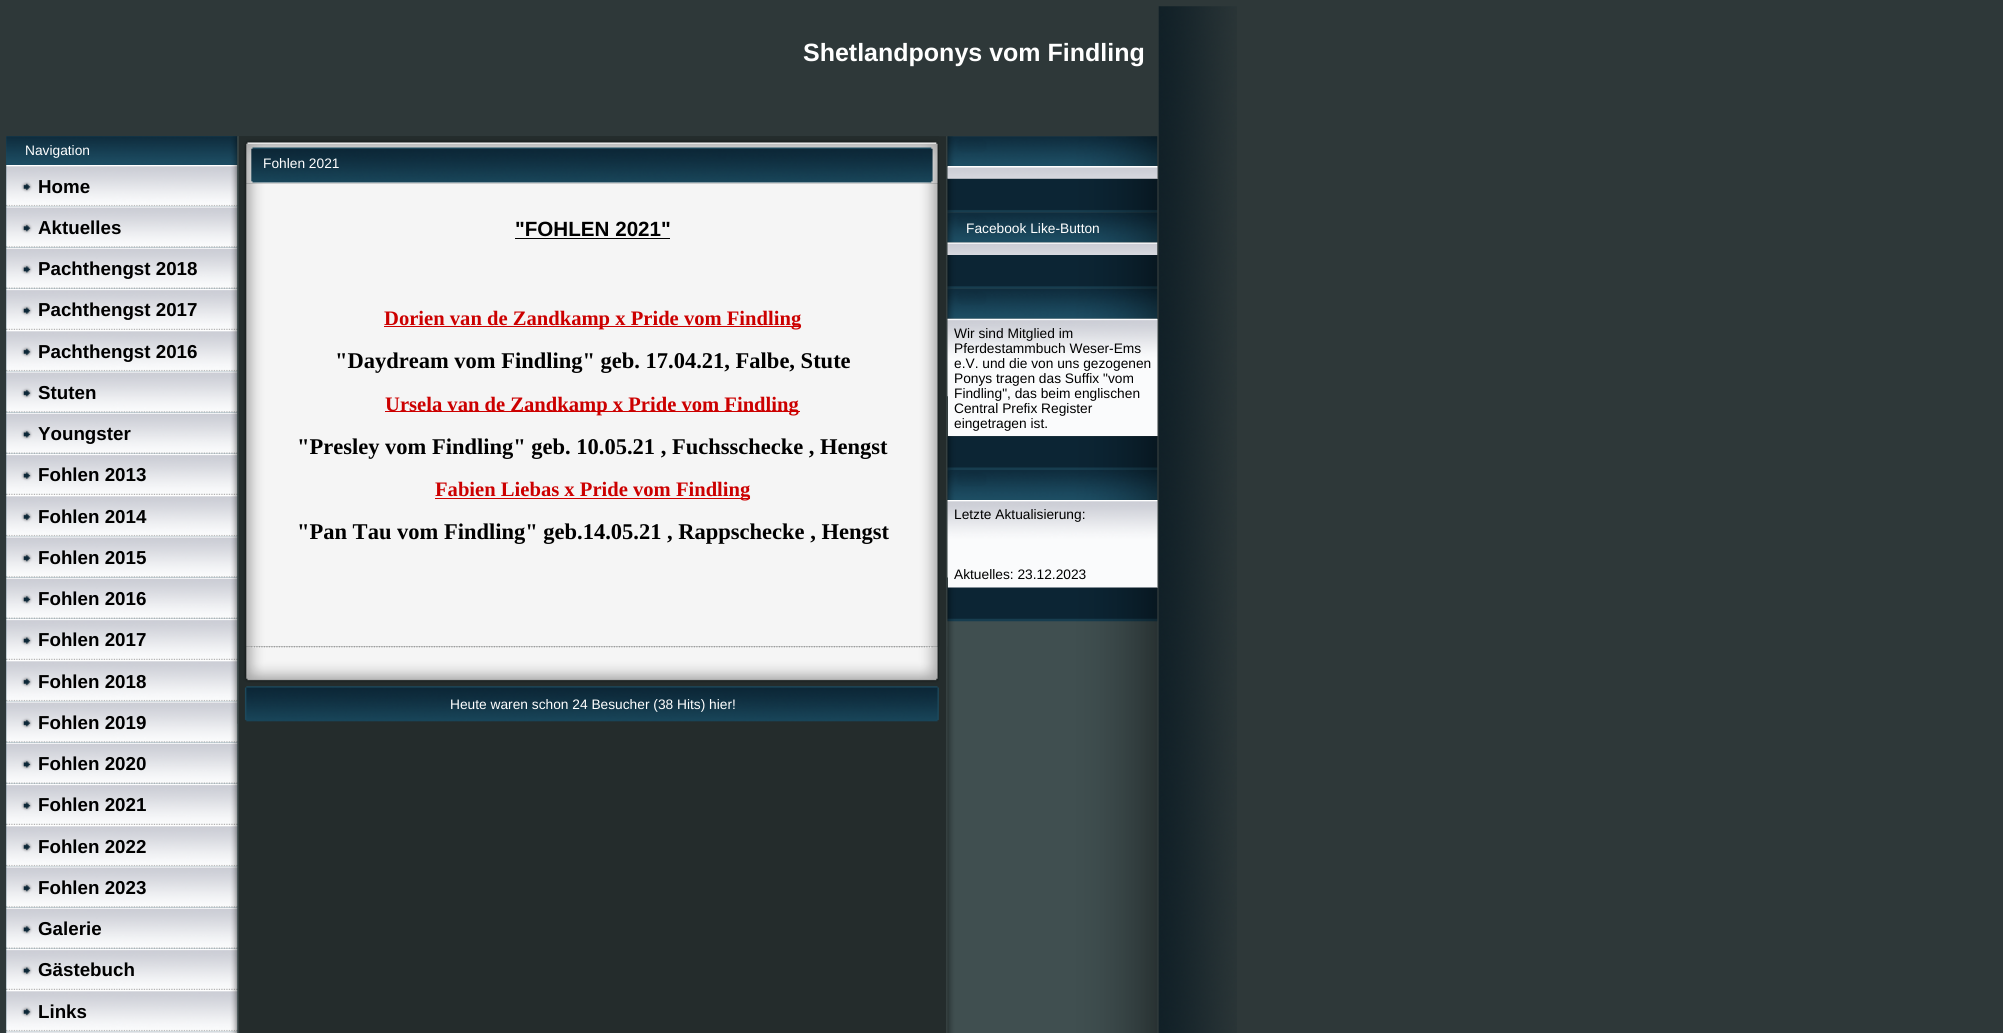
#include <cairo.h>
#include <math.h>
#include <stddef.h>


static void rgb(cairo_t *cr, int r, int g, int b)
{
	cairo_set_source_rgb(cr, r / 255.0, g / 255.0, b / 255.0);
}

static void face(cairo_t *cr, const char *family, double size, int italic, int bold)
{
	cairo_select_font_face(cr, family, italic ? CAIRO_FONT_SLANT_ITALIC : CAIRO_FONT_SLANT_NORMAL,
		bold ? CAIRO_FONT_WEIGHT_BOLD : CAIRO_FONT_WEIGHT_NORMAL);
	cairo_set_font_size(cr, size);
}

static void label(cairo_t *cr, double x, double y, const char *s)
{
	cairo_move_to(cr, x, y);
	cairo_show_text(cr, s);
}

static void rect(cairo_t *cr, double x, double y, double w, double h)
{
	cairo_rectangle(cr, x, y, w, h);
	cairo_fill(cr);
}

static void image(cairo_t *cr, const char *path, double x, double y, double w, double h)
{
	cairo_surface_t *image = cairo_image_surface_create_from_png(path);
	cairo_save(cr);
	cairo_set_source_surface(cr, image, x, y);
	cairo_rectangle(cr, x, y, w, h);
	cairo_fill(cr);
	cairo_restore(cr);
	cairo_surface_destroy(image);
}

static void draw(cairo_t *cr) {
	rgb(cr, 46, 56, 57);
	cairo_paint(cr);
	face(cr, "Liberation Sans", 25, 0, 1);
	rgb(cr, 255, 255, 255);
	label(cr, 803, 61, "Shetlandponys vom Findling");
	image(cr, "image0.png", 6, 136, 232, 897);
	image(cr, "image1.png", 6, 136, 232, 29);
	face(cr, "Liberation Sans", 13.75, 0, 0);
	label(cr, 25, 155, "Navigation");
	image(cr, "image2.png", 6, 165, 232, 42);
	face(cr, "Liberation Sans", 18.75, 0, 1);
	rgb(cr, 0, 0, 0);
	label(cr, 38, 193, "Home");
	image(cr, "image3.png", 6, 206, 232, 42);
	label(cr, 38, 234, "Aktuelles");
	image(cr, "image4.png", 6, 247, 232, 42);
	label(cr, 38, 275, "Pachthengst 2018");
	image(cr, "image5.png", 6, 288, 232, 42);
	label(cr, 38, 316, "Pachthengst 2017");
	image(cr, "image2.png", 6, 330, 232, 42);
	label(cr, 38, 358, "Pachthengst 2016");
	image(cr, "image3.png", 6, 371, 232, 42);
	label(cr, 38, 399, "Stuten");
	image(cr, "image4.png", 6, 412, 232, 42);
	label(cr, 38, 440, "Youngster");
	image(cr, "image6.png", 6, 453, 232, 42);
	label(cr, 38, 481, "Fohlen 2013");
	image(cr, "image2.png", 6, 495, 232, 42);
	label(cr, 38, 523, "Fohlen 2014");
	image(cr, "image3.png", 6, 536, 232, 42);
	label(cr, 38, 564, "Fohlen 2015");
	image(cr, "image7.png", 6, 577, 232, 42);
	label(cr, 38, 605, "Fohlen 2016");
	image(cr, "image6.png", 6, 618, 232, 42);
	label(cr, 38, 646, "Fohlen 2017");
	image(cr, "image2.png", 6, 660, 232, 42);
	label(cr, 38, 688, "Fohlen 2018");
	image(cr, "image3.png", 6, 701, 232, 42);
	label(cr, 38, 729, "Fohlen 2019");
	image(cr, "image4.png", 6, 742, 232, 42);
	label(cr, 38, 770, "Fohlen 2020");
	image(cr, "image6.png", 6, 783, 232, 42);
	label(cr, 38, 811, "Fohlen 2021");
	image(cr, "image2.png", 6, 825, 232, 42);
	label(cr, 38, 853, "Fohlen 2022");
	image(cr, "image3.png", 6, 866, 232, 42);
	label(cr, 38, 894, "Fohlen 2023");
	image(cr, "image4.png", 6, 907, 232, 42);
	label(cr, 38, 935, "Galerie");
	image(cr, "image6.png", 6, 948, 232, 42);
	label(cr, 38, 976, "Gästebuch");
	image(cr, "image2.png", 6, 990, 232, 42);
	label(cr, 38, 1018, "Links");
	image(cr, "image8.png", 6, 1031, 232, 2);
	image(cr, "image9.png", 237, 136, 711, 897);
	image(cr, "image10.png", 237, 136, 702, 48);
	face(cr, "Liberation Sans", 13.75, 0, 0);
	rgb(cr, 255, 255, 255);
	label(cr, 263, 168, "Fohlen 2021");
	image(cr, "image11.png", 237, 183, 711, 464);
	face(cr, "Liberation Sans", 20.6, 0, 1);
	rgb(cr, 0, 0, 0);
	label(cr, 515, 236, "\"FOHLEN 2021\"");
	rect(cr, 515, 238, 155, 1);
	rgb(cr, 204, 0, 0);
	rect(cr, 384, 326, 417, 1);
	face(cr, "Liberation Serif", 20.6, 0, 1);
	label(cr, 384, 325, "Dorien van de Zandkamp x Pride vom Findling");
	face(cr, "Liberation Serif", 22.5, 0, 1);
	rgb(cr, 0, 0, 0);
	label(cr, 335, 368, "\"Daydream vom Findling\" geb. 17.04.21, Falbe, Stute");
	rgb(cr, 204, 0, 0);
	rect(cr, 385, 411, 415, 1);
	face(cr, "Liberation Serif", 20.6, 0, 1);
	label(cr, 385, 411, "Ursela van de Zandkamp x Pride vom Findling");
	face(cr, "Liberation Serif", 22.5, 0, 1);
	rgb(cr, 0, 0, 0);
	label(cr, 297, 454, "\"Presley vom Findling\" geb. 10.05.21 , Fuchsschecke , Hengst");
	rgb(cr, 204, 0, 0);
	rect(cr, 435, 498, 315, 1);
	face(cr, "Liberation Serif", 20.6, 0, 1);
	label(cr, 435, 496, "Fabien Liebas x Pride vom Findling");
	face(cr, "Liberation Serif", 22.5, 0, 1);
	rgb(cr, 0, 0, 0);
	label(cr, 297, 539, "\"Pan Tau vom Findling\" geb.14.05.21 , Rappschecke , Hengst");
	image(cr, "image12.png", 237, 646, 702, 39);
	image(cr, "image13.png", 237, 685, 702, 39);
	face(cr, "Liberation Sans", 13.75, 0, 0);
	rgb(cr, 255, 255, 255);
	label(cr, 450, 709, "Heute waren schon 24 Besucher (38 Hits) hier!");
	image(cr, "image14.png", 947, 136, 210, 897);
	image(cr, "image15.png", 947, 136, 211, 31);
	rgb(cr, 250, 251, 252);
	rect(cr, 948, 166, 210, 13);
	image(cr, "image16.png", 947, 166, 211, 13);
	image(cr, "image17.png", 947, 178, 211, 35);
	image(cr, "image18.png", 947, 212, 211, 31);
	rgb(cr, 255, 255, 255);
	label(cr, 966, 233, "Facebook Like-Button");
	image(cr, "image19.png", 947, 242, 211, 13);
	image(cr, "image20.png", 947, 255, 211, 34);
	image(cr, "image21.png", 947, 288, 211, 31);
	rgb(cr, 250, 251, 252);
	rect(cr, 948, 319, 210, 117);
	image(cr, "image22.png", 947, 318, 211, 79);
	rgb(cr, 0, 0, 0);
	label(cr, 954, 338, "Wir sind Mitglied im");
	label(cr, 954, 353, "Pferdestammbuch Weser-Ems");
	label(cr, 954, 368, "e.V. und die von uns gezogenen");
	label(cr, 954, 383, "Ponys tragen das Suffix \"vom");
	label(cr, 954, 398, "Findling\", das beim englischen");
	label(cr, 954, 413, "Central Prefix Register");
	label(cr, 954, 428, "eingetragen ist.");
	image(cr, "image23.png", 947, 436, 211, 34);
	image(cr, "image24.png", 947, 470, 211, 30);
	rgb(cr, 250, 251, 252);
	rect(cr, 948, 500, 210, 88);
	image(cr, "image25.png", 947, 500, 211, 78);
	rgb(cr, 0, 0, 0);
	label(cr, 954, 519, "Letzte Aktualisierung:");
	label(cr, 954, 579, "Aktuelles: 23.12.2023");
	image(cr, "image26.png", 947, 587, 211, 35);
	image(cr, "image27.png", 1157, 6, 80, 1027);
}

int main(void) {
	cairo_surface_t *surface = cairo_image_surface_create(CAIRO_FORMAT_RGB24, 2003, 1033);
	cairo_t *cr = cairo_create(surface);
	cairo_font_options_t *options = cairo_font_options_create();
	cairo_font_options_set_hint_metrics(options, CAIRO_HINT_METRICS_OFF);
	cairo_font_options_set_hint_style(options, CAIRO_HINT_STYLE_NONE);
	cairo_set_font_options(cr, options);
	cairo_set_miter_limit(cr, 4);
	draw(cr);
	cairo_surface_write_to_png(surface, "render.png");
	cairo_font_options_destroy(options);
	cairo_destroy(cr);
	cairo_surface_destroy(surface);
	return 0;
}
